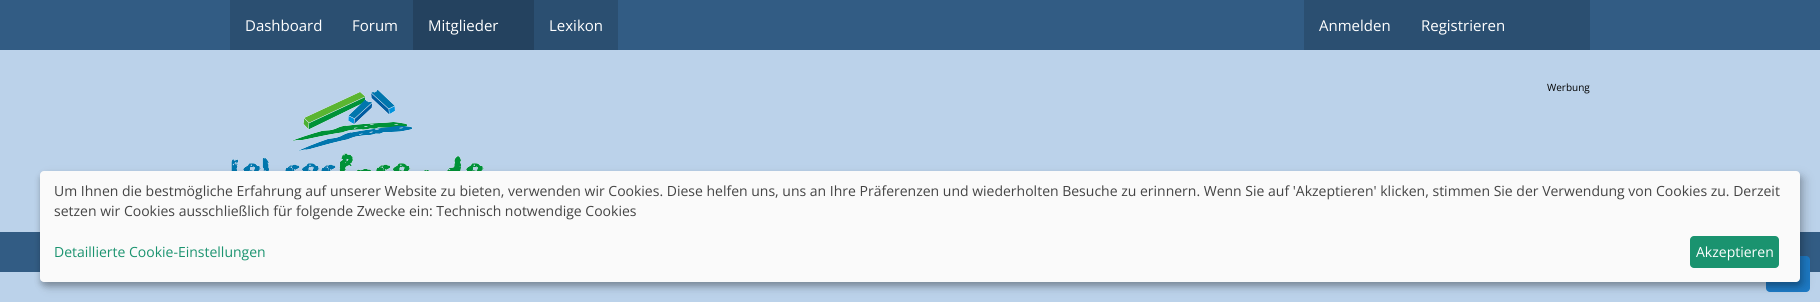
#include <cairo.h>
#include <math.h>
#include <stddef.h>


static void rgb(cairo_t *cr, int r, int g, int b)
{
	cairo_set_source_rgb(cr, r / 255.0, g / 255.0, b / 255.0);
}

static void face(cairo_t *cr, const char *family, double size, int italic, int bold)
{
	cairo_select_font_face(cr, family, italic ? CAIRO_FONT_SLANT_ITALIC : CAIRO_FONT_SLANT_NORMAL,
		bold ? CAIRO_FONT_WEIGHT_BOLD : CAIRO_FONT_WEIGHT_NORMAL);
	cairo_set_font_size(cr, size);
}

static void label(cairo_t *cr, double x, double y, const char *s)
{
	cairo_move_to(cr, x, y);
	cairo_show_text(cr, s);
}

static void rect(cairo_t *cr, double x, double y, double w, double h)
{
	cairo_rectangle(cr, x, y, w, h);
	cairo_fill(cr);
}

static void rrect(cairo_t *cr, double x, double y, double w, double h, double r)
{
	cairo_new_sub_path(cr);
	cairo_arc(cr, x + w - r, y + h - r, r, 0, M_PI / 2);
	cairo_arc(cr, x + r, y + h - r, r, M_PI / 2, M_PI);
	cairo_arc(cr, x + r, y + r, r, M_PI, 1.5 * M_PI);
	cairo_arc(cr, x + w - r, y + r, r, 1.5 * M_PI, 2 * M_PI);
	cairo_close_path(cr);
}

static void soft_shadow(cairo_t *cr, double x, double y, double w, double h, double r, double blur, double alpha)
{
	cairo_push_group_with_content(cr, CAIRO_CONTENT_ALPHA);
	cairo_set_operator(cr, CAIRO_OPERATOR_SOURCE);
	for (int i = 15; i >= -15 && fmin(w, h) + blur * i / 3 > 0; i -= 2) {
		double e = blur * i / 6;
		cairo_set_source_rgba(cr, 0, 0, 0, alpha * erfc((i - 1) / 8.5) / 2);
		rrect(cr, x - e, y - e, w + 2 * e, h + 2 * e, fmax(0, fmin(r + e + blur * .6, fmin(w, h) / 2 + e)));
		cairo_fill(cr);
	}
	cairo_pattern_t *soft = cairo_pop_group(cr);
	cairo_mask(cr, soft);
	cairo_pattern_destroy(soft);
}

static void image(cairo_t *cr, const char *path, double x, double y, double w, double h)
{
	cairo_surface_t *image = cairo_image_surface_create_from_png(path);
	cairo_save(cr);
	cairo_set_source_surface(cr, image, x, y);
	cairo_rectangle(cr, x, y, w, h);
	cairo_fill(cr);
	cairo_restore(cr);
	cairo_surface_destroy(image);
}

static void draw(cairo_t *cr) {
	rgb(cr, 187, 210, 234);
	cairo_paint(cr);
	rgb(cr, 50, 92, 132);
	rect(cr, 0, 0, 1820, 50);
	rgb(cr, 43, 79, 113);
	rect(cr, 230, 0, 183, 50);
	face(cr, "Open Sans", 15, 0, 0);
	rgb(cr, 255, 255, 255);
	label(cr, 245, 31, "Dashboard");
	label(cr, 352, 31, "Forum");
	rgb(cr, 36, 66, 95);
	rect(cr, 413, 0, 121, 50);
	rgb(cr, 255, 255, 255);
	label(cr, 428, 31, "Mitglieder");
	rgb(cr, 43, 79, 113);
	rect(cr, 534, 0, 84, 50);
	rgb(cr, 255, 255, 255);
	label(cr, 549, 31, "Lexikon");
	rgb(cr, 43, 79, 113);
	rect(cr, 1304, 0, 286, 50);
	rgb(cr, 255, 255, 255);
	label(cr, 1319, 31, "Anmelden");
	label(cr, 1421, 31, "Registrieren");
	face(cr, "Open Sans", 10, 0, 0);
	rgb(cr, 0, 0, 0);
	label(cr, 1547, 91, "Werbung");
	image(cr, "image0.png", 231, 90, 254, 81);
	rgb(cr, 50, 92, 132);
	rect(cr, 0, 232, 1820, 40);
	rgb(cr, 29, 122, 197);
	rrect(cr, 1766, 256, 44, 36, 4);
	cairo_fill(cr);
	rgb(cr, 0, 0, 0);
	soft_shadow(cr, 45, 176, 1760, 111, 4, 5, 0.19);
	soft_shadow(cr, 40, 175, 1760, 111, 4, 3, 0.2);
	rgb(cr, 250, 250, 250);
	rrect(cr, 40, 171, 1760, 111, 4);
	cairo_fill(cr);
	face(cr, "Open Sans", 14, 0, 0);
	rgb(cr, 68, 68, 68);
	label(cr, 54, 196, "Um Ihnen die bestmögliche Erfahrung auf unserer Website zu bieten, verwenden wir Cookies. Diese helfen uns, uns an Ihre Präferenzen und wiederholten Besuche zu erinnern. Wenn Sie auf 'Akzeptieren' klicken, stimmen Sie der Verwendung von Cookies zu. Derzeit");
	label(cr, 54, 216, "setzen wir Cookies ausschließlich für folgende Zwecke ein: Technisch notwendige Cookies");
	rgb(cr, 26, 147, 111);
	label(cr, 54, 257, "Detaillierte Cookie-Einstellungen");
	rrect(cr, 1690, 236, 89, 32, 4);
	cairo_fill(cr);
	rgb(cr, 255, 255, 255);
	label(cr, 1696, 257, "Akzeptieren");
}

int main(void) {
	cairo_surface_t *surface = cairo_image_surface_create(CAIRO_FORMAT_RGB24, 1820, 302);
	cairo_t *cr = cairo_create(surface);
	cairo_font_options_t *options = cairo_font_options_create();
	cairo_font_options_set_hint_metrics(options, CAIRO_HINT_METRICS_OFF);
	cairo_font_options_set_hint_style(options, CAIRO_HINT_STYLE_NONE);
	cairo_set_font_options(cr, options);
	cairo_set_miter_limit(cr, 4);
	draw(cr);
	cairo_surface_write_to_png(surface, "render.png");
	cairo_font_options_destroy(options);
	cairo_destroy(cr);
	cairo_surface_destroy(surface);
	return 0;
}
